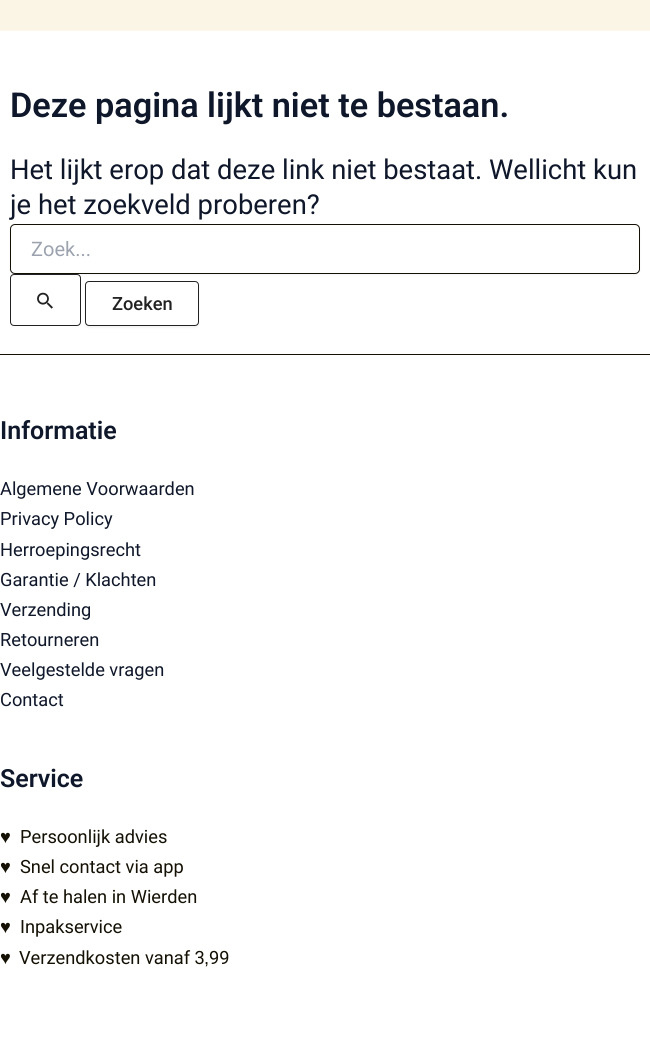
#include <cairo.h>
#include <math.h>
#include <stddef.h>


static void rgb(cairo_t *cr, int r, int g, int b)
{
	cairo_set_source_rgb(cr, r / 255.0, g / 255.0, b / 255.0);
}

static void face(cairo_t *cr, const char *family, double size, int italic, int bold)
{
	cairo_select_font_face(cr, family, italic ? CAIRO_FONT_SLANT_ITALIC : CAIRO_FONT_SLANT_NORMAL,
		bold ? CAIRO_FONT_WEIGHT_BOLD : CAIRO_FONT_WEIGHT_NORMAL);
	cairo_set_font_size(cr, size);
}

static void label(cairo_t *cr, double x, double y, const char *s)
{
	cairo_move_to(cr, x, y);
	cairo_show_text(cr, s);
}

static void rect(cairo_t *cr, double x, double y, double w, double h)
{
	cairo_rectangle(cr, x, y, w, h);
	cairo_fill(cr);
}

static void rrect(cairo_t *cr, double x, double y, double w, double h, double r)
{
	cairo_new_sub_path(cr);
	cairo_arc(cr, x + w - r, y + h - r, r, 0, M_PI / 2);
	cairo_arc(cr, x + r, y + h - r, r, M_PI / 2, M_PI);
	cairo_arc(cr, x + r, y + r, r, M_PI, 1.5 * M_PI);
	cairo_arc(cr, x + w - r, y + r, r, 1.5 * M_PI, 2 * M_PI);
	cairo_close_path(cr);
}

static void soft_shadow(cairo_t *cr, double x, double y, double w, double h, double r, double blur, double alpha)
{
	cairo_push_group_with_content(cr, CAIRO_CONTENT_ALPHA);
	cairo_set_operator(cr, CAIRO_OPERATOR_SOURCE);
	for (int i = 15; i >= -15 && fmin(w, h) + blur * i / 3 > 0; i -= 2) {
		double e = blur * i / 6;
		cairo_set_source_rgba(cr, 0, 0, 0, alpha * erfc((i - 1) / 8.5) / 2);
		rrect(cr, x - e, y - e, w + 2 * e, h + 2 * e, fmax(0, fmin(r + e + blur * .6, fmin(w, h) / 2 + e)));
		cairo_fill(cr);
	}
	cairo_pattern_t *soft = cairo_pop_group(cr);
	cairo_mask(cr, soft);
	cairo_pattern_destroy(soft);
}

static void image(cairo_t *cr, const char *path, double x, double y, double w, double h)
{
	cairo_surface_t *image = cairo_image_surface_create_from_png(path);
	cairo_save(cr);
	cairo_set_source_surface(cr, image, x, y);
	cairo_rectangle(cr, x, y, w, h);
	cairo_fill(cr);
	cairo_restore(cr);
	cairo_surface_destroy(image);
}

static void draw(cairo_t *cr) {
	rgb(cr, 255, 255, 255);
	cairo_paint(cr);
	rgb(cr, 250, 245, 229);
	rect(cr, 0, 0, 650, 30);
	rgb(cr, 255, 247, 238);
	rect(cr, 0, 30, 650, 1);
	face(cr, "Roboto SemiBold", 34.25, 0, 0);
	rgb(cr, 15, 23, 42);
	label(cr, 10, 117, "Deze pagina lijkt niet te bestaan.");
	face(cr, "Roboto", 27.4, 0, 0);
	label(cr, 10, 179, "Het lijkt erop dat deze link niet bestaat. Wellicht kun");
	label(cr, 10, 214, "je het zoekveld proberen?");
	rgb(cr, 0, 0, 0);
	soft_shadow(cr, 10, 225, 630, 50, 5, 1, 0.05);
	rgb(cr, 255, 255, 255);
	rrect(cr, 10.5, 224.5, 629, 49, 4.5);
	cairo_fill_preserve(cr);
	rgb(cr, 20, 16, 4);
	cairo_set_line_width(cr, 1);
	cairo_stroke(cr);
	face(cr, "Roboto", 20, 0, 0);
	rgb(cr, 156, 163, 175);
	label(cr, 31, 256, "Zoek...");
	rrect(cr, 10.5, 274.5, 70, 51, 3.5);
	rgb(cr, 34, 34, 34);
	cairo_stroke(cr);
	image(cr, "image0.png", 37, 292, 16, 17);
	cairo_save(cr);
	cairo_set_fill_rule(cr, CAIRO_FILL_RULE_EVEN_ODD);
	cairo_new_path(cr);
	cairo_move_to(cr, 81, 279);
	cairo_line_to(cr, 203, 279);
	cairo_line_to(cr, 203, 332);
	cairo_line_to(cr, 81, 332);
	cairo_close_path(cr);
	cairo_move_to(cr, 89, 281);
	cairo_line_to(cr, 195, 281);
	cairo_curve_to(cr, 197, 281, 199, 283, 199, 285);
	cairo_line_to(cr, 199, 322);
	cairo_curve_to(cr, 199, 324, 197, 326, 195, 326);
	cairo_line_to(cr, 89, 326);
	cairo_curve_to(cr, 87, 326, 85, 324, 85, 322);
	cairo_line_to(cr, 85, 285);
	cairo_curve_to(cr, 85, 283, 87, 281, 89, 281);
	cairo_close_path(cr);
	cairo_clip(cr);
	rgb(cr, 0, 0, 0);
	soft_shadow(cr, 85, 283, 114, 45, 4, 1, 0.05);
	cairo_restore(cr);
	rrect(cr, 85.5, 281.5, 113, 44, 3.5);
	cairo_stroke(cr);
	face(cr, "Roboto Medium", 18.25, 0, 0);
	label(cr, 112, 310, "Zoeken");
	rgb(cr, 20, 16, 4);
	rect(cr, 0, 354, 650, 1);
	face(cr, "Roboto SemiBold", 25, 0, 0);
	rgb(cr, 15, 23, 42);
	label(cr, 0, 439, "Informatie");
	face(cr, "Roboto", 18.25, 0, 0);
	label(cr, 0, 495, "Algemene Voorwaarden");
	label(cr, 0, 525, "Privacy Policy");
	label(cr, 0, 556, "Herroepingsrecht");
	label(cr, 0, 586, "Garantie / Klachten");
	label(cr, 0, 616, "Verzending");
	label(cr, 0, 646, "Retourneren");
	label(cr, 0, 676, "Veelgestelde vragen");
	label(cr, 0, 706, "Contact");
	face(cr, "Roboto SemiBold", 25, 0, 0);
	label(cr, 0, 787, "Service");
	face(cr, "Liberation Sans", 18.25, 0, 0);
	rgb(cr, 20, 16, 4);
	label(cr, 0, 843, "♥");
	face(cr, "Roboto", 18.25, 0, 0);
	label(cr, 20, 843, "Persoonlijk advies");
	face(cr, "Liberation Sans", 18.25, 0, 0);
	label(cr, 0, 873, "♥");
	face(cr, "Roboto", 18.25, 0, 0);
	label(cr, 20, 873, "Snel contact via app");
	face(cr, "Liberation Sans", 18.25, 0, 0);
	label(cr, 0, 903, "♥");
	face(cr, "Roboto", 18.25, 0, 0);
	label(cr, 20, 903, "Af te halen in Wierden");
	face(cr, "Liberation Sans", 18.25, 0, 0);
	label(cr, 0, 933, "♥");
	face(cr, "Roboto", 18.25, 0, 0);
	label(cr, 20, 933, "Inpakservice");
	face(cr, "Liberation Sans", 18.25, 0, 0);
	label(cr, 0, 964, "♥");
	face(cr, "Roboto", 18.25, 0, 0);
	label(cr, 19, 964, "Verzendkosten vanaf 3");
	face(cr, "Liberation Sans", 18.25, 0, 0);
	label(cr, 204, 964, ",");
	face(cr, "Roboto", 18.25, 0, 0);
	label(cr, 209, 964, "99");
}

int main(void) {
	cairo_surface_t *surface = cairo_image_surface_create(CAIRO_FORMAT_RGB24, 650, 1058);
	cairo_t *cr = cairo_create(surface);
	cairo_font_options_t *options = cairo_font_options_create();
	cairo_font_options_set_hint_metrics(options, CAIRO_HINT_METRICS_OFF);
	cairo_font_options_set_hint_style(options, CAIRO_HINT_STYLE_NONE);
	cairo_set_font_options(cr, options);
	cairo_set_miter_limit(cr, 4);
	draw(cr);
	cairo_surface_write_to_png(surface, "render.png");
	cairo_font_options_destroy(options);
	cairo_destroy(cr);
	cairo_surface_destroy(surface);
	return 0;
}
